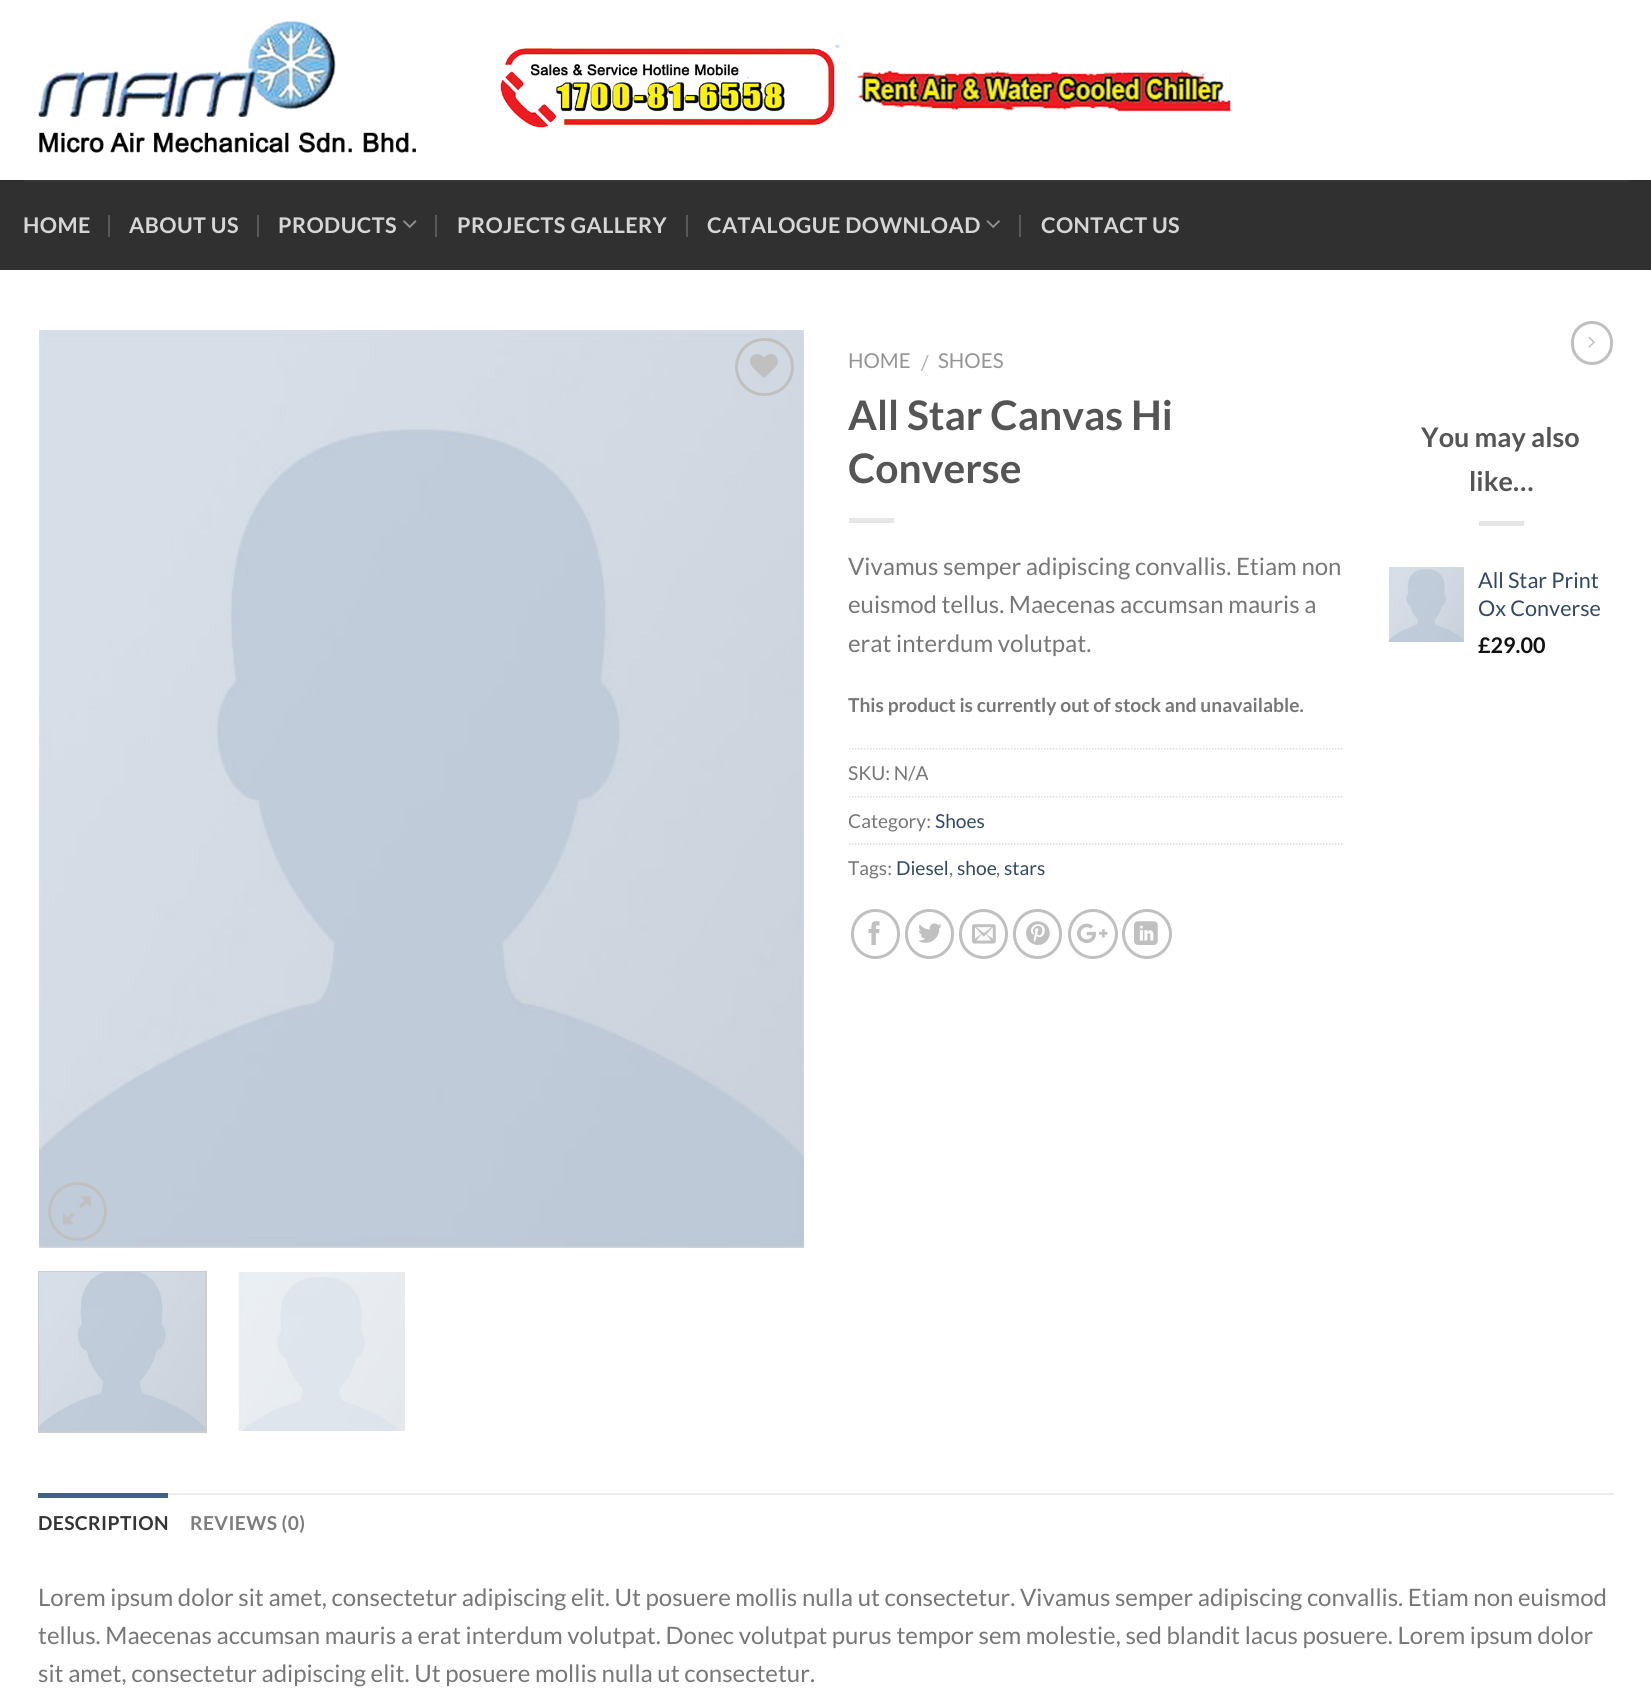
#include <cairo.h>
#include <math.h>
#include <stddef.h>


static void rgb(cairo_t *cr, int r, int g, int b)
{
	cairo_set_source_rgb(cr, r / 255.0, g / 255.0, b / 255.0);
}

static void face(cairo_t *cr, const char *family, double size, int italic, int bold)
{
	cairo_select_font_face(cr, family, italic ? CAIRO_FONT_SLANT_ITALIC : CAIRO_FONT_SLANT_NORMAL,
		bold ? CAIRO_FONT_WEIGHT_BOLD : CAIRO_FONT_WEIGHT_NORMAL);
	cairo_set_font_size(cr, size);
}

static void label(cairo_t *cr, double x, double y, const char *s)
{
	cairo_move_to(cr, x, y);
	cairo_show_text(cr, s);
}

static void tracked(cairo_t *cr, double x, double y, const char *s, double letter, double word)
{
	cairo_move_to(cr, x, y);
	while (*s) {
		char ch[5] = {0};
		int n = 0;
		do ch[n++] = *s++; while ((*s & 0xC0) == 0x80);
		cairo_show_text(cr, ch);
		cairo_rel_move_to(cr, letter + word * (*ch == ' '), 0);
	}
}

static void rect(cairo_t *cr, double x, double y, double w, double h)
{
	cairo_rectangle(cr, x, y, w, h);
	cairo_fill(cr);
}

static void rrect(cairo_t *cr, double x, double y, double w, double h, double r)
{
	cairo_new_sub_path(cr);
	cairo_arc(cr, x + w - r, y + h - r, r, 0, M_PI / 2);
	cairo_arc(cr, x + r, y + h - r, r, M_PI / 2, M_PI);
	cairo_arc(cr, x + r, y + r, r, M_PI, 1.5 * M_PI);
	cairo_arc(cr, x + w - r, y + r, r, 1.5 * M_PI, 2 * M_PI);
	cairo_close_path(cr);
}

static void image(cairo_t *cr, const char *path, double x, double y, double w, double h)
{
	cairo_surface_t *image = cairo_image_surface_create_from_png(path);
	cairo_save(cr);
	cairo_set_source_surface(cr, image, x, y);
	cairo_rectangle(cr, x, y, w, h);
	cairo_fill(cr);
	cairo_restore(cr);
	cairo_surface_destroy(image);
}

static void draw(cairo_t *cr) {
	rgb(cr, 255, 255, 255);
	cairo_paint(cr);
	image(cr, "image0.png", 38, 20, 378, 133);
	image(cr, "image1.png", 500, 45, 731, 83);
	rgb(cr, 48, 48, 48);
	rect(cr, 0, 180, 1651, 90);
	rgb(cr, 55, 55, 55);
	rect(cr, 23, 180, 1606, 2);
	face(cr, "Lato", 21.6, 0, 1);
	rgb(cr, 214, 214, 214);
	tracked(cr, 23, 233, "HOME", 0.4, 0);
	rgb(cr, 89, 89, 89);
	rect(cr, 108, 215, 2, 22);
	rgb(cr, 214, 214, 214);
	tracked(cr, 129, 233, "ABOUT US", 0.4, 0);
	rgb(cr, 89, 89, 89);
	rect(cr, 257, 215, 2, 22);
	rgb(cr, 214, 214, 214);
	tracked(cr, 278, 233, "PRODUCTS", 0.4, 0);
	image(cr, "image2.png", 403, 220, 14, 8);
	rgb(cr, 89, 89, 89);
	rect(cr, 435, 215, 2, 22);
	rgb(cr, 214, 214, 214);
	tracked(cr, 457, 233, "PROJECTS GALLERY", 0.4, 0);
	rgb(cr, 89, 89, 89);
	rect(cr, 686, 215, 2, 22);
	rgb(cr, 214, 214, 214);
	tracked(cr, 707, 233, "CATALOGUE DOWNLOAD", 0.4, 0);
	image(cr, "image3.png", 986, 220, 14, 8);
	rgb(cr, 89, 89, 89);
	rect(cr, 1019, 215, 2, 22);
	rgb(cr, 214, 214, 214);
	tracked(cr, 1041, 233, "CONTACT US", 0.4, 0);
	image(cr, "image4.png", 39, 330, 765, 918);
	rrect(cr, 736.5, 339.5, 56, 55, 27.5);
	rgb(cr, 192, 192, 192);
	cairo_set_line_width(cr, 3);
	cairo_stroke(cr);
	image(cr, "image5.png", 750, 354, 28, 24);
	cairo_arc(cr, 77.5, 1211.5, 28, 0, 2 * M_PI);
	cairo_stroke(cr);
	image(cr, "image6.png", 63, 1196, 28, 29);
	cairo_rectangle(cr, 39, 1272, 167, 160);
	rgb(cr, 204, 204, 204);
	cairo_set_line_width(cr, 2);
	cairo_stroke(cr);
	image(cr, "image7.png", 39, 1272, 167, 159);
	image(cr, "image8.png", 238, 1272, 167, 159);
	face(cr, "Lato", 20.5, 0, 0);
	rgb(cr, 148, 148, 148);
	label(cr, 848, 368, "HOME");
	rgb(cr, 178, 178, 178);
	label(cr, 921, 370, "/");
	rgb(cr, 148, 148, 148);
	label(cr, 938, 368, "SHOES");
	face(cr, "Lato", 40.75, 0, 1);
	rgb(cr, 85, 85, 85);
	label(cr, 848, 430, "All Star Canvas Hi");
	label(cr, 848, 483, "Converse");
	rgb(cr, 230, 230, 230);
	rect(cr, 849, 518, 45, 5);
	face(cr, "Lato", 24, 0, 0);
	rgb(cr, 119, 119, 119);
	label(cr, 848, 575, "Vivamus semper adipiscing convallis. Etiam non");
	label(cr, 848, 613, "euismod tellus. Maecenas accumsan mauris a");
	label(cr, 848, 652, "erat interdum volutpat.");
	face(cr, "Lato", 19.2, 0, 1);
	label(cr, 848, 712, "This product is currently out of stock and unavailable.");
	cairo_new_path(cr);
	cairo_move_to(cr, 849, 749);
	cairo_line_to(cr, 1344, 749);
	rgb(cr, 221, 221, 221);
	cairo_set_line_width(cr, 1.5);
	cairo_set_dash(cr, (double[]){1.5, 1.5}, 2, 0);
	cairo_stroke(cr);
	face(cr, "Lato", 19.2, 0, 0);
	rgb(cr, 119, 119, 119);
	label(cr, 848, 780, "SKU: N/A");
	cairo_new_path(cr);
	cairo_move_to(cr, 849, 797);
	cairo_line_to(cr, 1344, 797);
	rgb(cr, 221, 221, 221);
	cairo_stroke(cr);
	rgb(cr, 119, 119, 119);
	label(cr, 848, 828, "Category:");
	rgb(cr, 51, 72, 98);
	label(cr, 935, 828, "Shoes");
	cairo_new_path(cr);
	cairo_move_to(cr, 849, 844);
	cairo_line_to(cr, 1344, 844);
	rgb(cr, 221, 221, 221);
	cairo_stroke(cr);
	rgb(cr, 119, 119, 119);
	label(cr, 848, 875, "Tags:");
	rgb(cr, 51, 72, 98);
	label(cr, 896, 875, "Diesel");
	rgb(cr, 119, 119, 119);
	label(cr, 949, 875, ",");
	rgb(cr, 51, 72, 98);
	label(cr, 957, 875, "shoe");
	rgb(cr, 119, 119, 119);
	label(cr, 996, 875, ",");
	rgb(cr, 51, 72, 98);
	label(cr, 1004, 875, "stars");
	rrect(cr, 852.5, 910.5, 46, 47, 23);
	rgb(cr, 192, 192, 192);
	cairo_set_line_width(cr, 3);
	cairo_set_dash(cr, NULL, 0, 0);
	cairo_stroke(cr);
	image(cr, "image9.png", 868, 921, 12, 24);
	rrect(cr, 906.5, 910.5, 46, 47, 23);
	cairo_stroke(cr);
	image(cr, "image10.png", 918, 923, 24, 20);
	rrect(cr, 960.5, 910.5, 46, 47, 23);
	cairo_stroke(cr);
	image(cr, "image11.png", 972, 924, 24, 20);
	rrect(cr, 1014.5, 910.5, 46, 47, 23);
	cairo_stroke(cr);
	image(cr, "image12.png", 1026, 921, 24, 24);
	cairo_arc(cr, 1093, 934, 23.5, 0, 2 * M_PI);
	cairo_stroke(cr);
	image(cr, "image13.png", 1077, 923, 31, 20);
	cairo_arc(cr, 1147, 934, 23.5, 0, 2 * M_PI);
	cairo_stroke(cr);
	image(cr, "image14.png", 1134, 921, 24, 24);
	rrect(cr, 1572.5, 322.5, 39, 41, 19.5);
	cairo_stroke(cr);
	image(cr, "image15.png", 1588, 336, 7, 12);
	face(cr, "Lato", 27, 0, 1);
	rgb(cr, 85, 85, 85);
	label(cr, 1421, 447, "You may also");
	label(cr, 1469, 491, "like…");
	rgb(cr, 230, 230, 230);
	rect(cr, 1479, 521, 45, 5);
	image(cr, "image16.png", 1389, 567, 75, 75);
	face(cr, "Lato", 21.6, 0, 0);
	rgb(cr, 51, 72, 98);
	label(cr, 1478, 588, "All Star Print");
	label(cr, 1478, 616, "Ox Converse");
	face(cr, "Lato", 21.6, 0, 1);
	rgb(cr, 17, 17, 17);
	label(cr, 1478, 653, "£29.00");
	rgb(cr, 236, 236, 236);
	rect(cr, 168, 1493, 1446, 2);
	rgb(cr, 68, 96, 132);
	rect(cr, 38, 1493, 130, 5);
	face(cr, "Lato", 19.2, 0, 1);
	rgb(cr, 53, 53, 53);
	tracked(cr, 38, 1530, "DESCRIPTION", 0.4, 0);
	rgb(cr, 125, 125, 125);
	tracked(cr, 190, 1530, "REVIEWS (0)", 0.4, 0);
	face(cr, "Lato", 24, 0, 0);
	rgb(cr, 119, 119, 119);
	label(cr, 38, 1606, "Lorem ipsum dolor sit amet, consectetur adipiscing elit. Ut posuere mollis nulla ut consectetur. Vivamus semper adipiscing convallis. Etiam non euismod");
	label(cr, 38, 1644, "tellus. Maecenas accumsan mauris a erat interdum volutpat. Donec volutpat purus tempor sem molestie, sed blandit lacus posuere. Lorem ipsum dolor");
	label(cr, 38, 1682, "sit amet, consectetur adipiscing elit. Ut posuere mollis nulla ut consectetur.");
}

int main(void) {
	cairo_surface_t *surface = cairo_image_surface_create(CAIRO_FORMAT_RGB24, 1651, 1699);
	cairo_t *cr = cairo_create(surface);
	cairo_font_options_t *options = cairo_font_options_create();
	cairo_font_options_set_hint_metrics(options, CAIRO_HINT_METRICS_OFF);
	cairo_font_options_set_hint_style(options, CAIRO_HINT_STYLE_NONE);
	cairo_set_font_options(cr, options);
	cairo_set_miter_limit(cr, 4);
	draw(cr);
	cairo_surface_write_to_png(surface, "render.png");
	cairo_font_options_destroy(options);
	cairo_destroy(cr);
	cairo_surface_destroy(surface);
	return 0;
}
